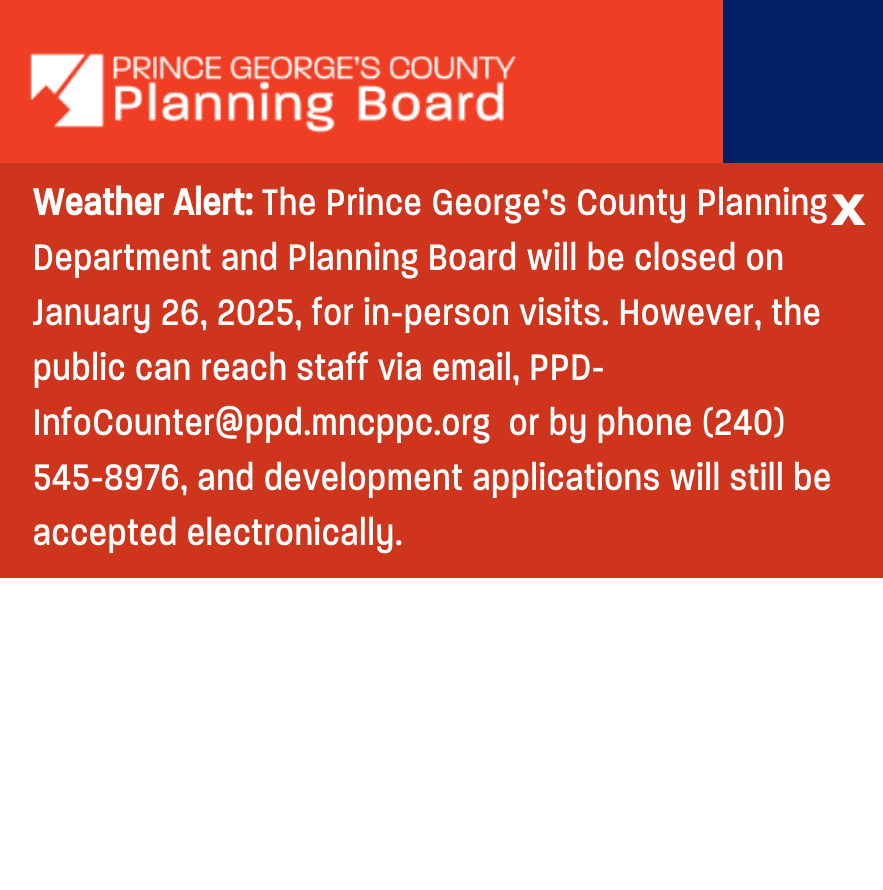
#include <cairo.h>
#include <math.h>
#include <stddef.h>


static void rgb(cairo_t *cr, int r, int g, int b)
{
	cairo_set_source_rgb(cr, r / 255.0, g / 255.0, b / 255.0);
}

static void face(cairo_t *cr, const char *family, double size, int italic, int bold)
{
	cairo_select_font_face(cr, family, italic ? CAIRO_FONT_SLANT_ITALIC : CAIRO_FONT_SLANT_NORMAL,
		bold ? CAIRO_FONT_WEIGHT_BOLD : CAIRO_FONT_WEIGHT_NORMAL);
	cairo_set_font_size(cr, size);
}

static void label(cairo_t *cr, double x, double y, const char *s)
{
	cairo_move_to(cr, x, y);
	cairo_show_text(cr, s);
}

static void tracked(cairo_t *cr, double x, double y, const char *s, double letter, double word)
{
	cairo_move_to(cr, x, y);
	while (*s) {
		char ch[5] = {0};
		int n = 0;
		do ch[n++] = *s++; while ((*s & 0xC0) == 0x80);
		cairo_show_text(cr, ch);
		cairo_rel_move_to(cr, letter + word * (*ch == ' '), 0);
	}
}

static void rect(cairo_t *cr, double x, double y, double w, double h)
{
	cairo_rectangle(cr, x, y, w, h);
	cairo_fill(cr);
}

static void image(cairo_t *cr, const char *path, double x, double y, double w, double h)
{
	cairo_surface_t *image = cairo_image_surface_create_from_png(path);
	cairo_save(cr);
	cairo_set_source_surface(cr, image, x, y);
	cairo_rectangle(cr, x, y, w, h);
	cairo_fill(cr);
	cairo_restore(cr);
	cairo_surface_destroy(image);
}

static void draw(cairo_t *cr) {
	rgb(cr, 255, 255, 255);
	cairo_paint(cr);
	rgb(cr, 239, 62, 35);
	rect(cr, 0, 0, 723, 163);
	image(cr, "image0.png", 29, 53, 488, 80);
	rgb(cr, 2, 33, 105);
	rect(cr, 723, 0, 160, 163);
	rgb(cr, 207, 53, 29);
	rect(cr, 0, 163, 883, 415);
	face(cr, "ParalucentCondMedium", 40, 0, 1);
	rgb(cr, 255, 255, 255);
	tracked(cr, 33, 215, "Weather Alert:", 1, 0);
	face(cr, "ParalucentCondMedium Medium", 40, 0, 0);
	tracked(cr, 262, 215, "The Prince George’s County Planning", 1, 0);
	tracked(cr, 33, 270, "Department and Planning Board will be closed on", 1, 0);
	tracked(cr, 33, 325, "January 26, 2025, for in-person visits. However, the", 1, 0);
	tracked(cr, 33, 380, "public can reach staff via email, PPD-", 1, 0);
	tracked(cr, 33, 435, "InfoCounter@ppd.mncppc.org  or by phone (240)", 1, 0);
	tracked(cr, 33, 490, "545-8976, and development applications will still be", 1, 0);
	tracked(cr, 33, 545, "accepted electronically.", 1, 0);
	face(cr, "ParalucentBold", 60, 0, 1);
	label(cr, 831, 225, "×");
}

int main(void) {
	cairo_surface_t *surface = cairo_image_surface_create(CAIRO_FORMAT_RGB24, 883, 890);
	cairo_t *cr = cairo_create(surface);
	cairo_font_options_t *options = cairo_font_options_create();
	cairo_font_options_set_hint_metrics(options, CAIRO_HINT_METRICS_OFF);
	cairo_font_options_set_hint_style(options, CAIRO_HINT_STYLE_NONE);
	cairo_set_font_options(cr, options);
	cairo_set_miter_limit(cr, 4);
	draw(cr);
	cairo_surface_write_to_png(surface, "render.png");
	cairo_font_options_destroy(options);
	cairo_destroy(cr);
	cairo_surface_destroy(surface);
	return 0;
}
